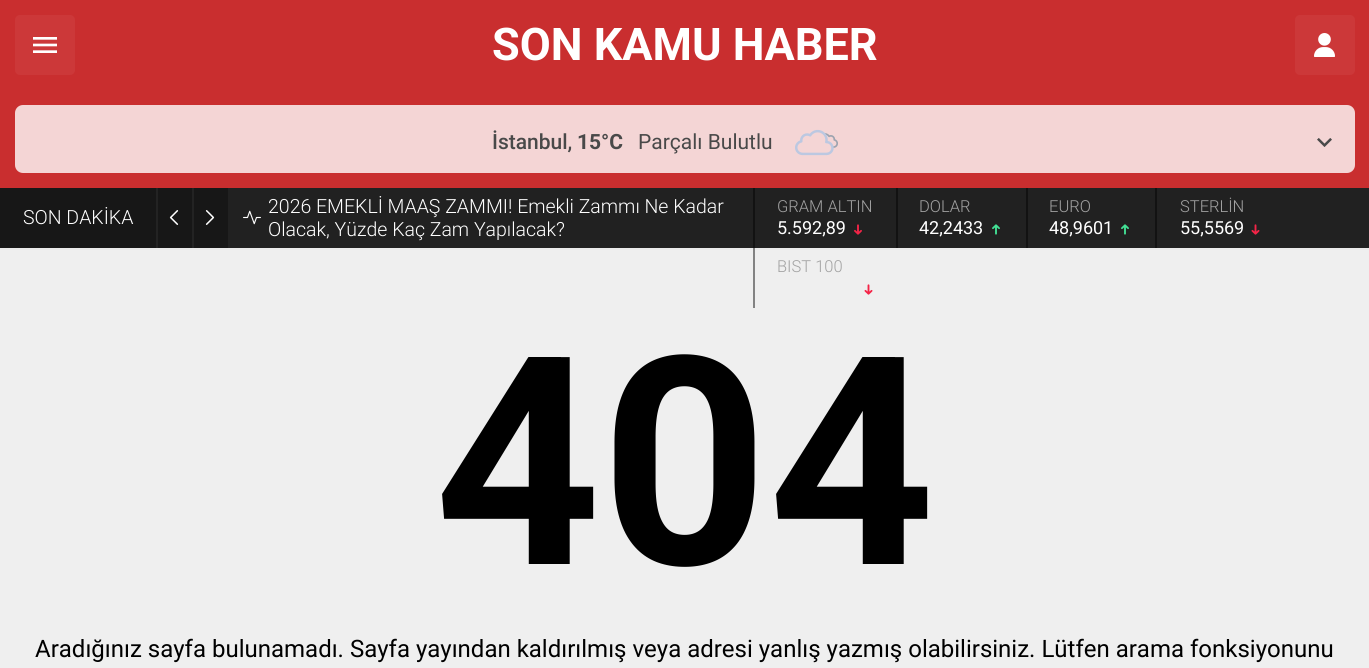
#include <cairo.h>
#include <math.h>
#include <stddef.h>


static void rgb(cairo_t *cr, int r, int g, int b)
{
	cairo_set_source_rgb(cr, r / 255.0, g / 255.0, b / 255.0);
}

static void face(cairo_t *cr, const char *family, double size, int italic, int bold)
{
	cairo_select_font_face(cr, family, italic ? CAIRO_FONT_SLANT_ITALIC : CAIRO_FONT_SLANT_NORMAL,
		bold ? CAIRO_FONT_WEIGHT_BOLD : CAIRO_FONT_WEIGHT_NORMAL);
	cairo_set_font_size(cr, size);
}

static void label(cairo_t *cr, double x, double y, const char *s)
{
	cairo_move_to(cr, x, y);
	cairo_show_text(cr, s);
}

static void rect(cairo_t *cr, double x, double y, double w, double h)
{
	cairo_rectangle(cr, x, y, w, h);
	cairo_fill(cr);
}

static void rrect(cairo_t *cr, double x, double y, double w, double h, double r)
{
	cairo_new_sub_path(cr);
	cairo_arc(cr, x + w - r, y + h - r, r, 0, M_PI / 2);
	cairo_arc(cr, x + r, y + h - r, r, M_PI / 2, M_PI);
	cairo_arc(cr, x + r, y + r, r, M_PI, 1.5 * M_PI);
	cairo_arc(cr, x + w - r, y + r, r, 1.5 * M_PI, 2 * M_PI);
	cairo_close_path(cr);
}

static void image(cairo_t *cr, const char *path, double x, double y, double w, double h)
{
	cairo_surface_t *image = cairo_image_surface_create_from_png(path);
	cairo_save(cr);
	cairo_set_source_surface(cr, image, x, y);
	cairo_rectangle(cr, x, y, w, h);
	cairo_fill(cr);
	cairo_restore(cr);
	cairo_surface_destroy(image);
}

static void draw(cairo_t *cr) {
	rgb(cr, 239, 239, 239);
	cairo_paint(cr);
	rgb(cr, 131, 131, 131);
	rect(cr, 753, 248, 2, 60);
	rgb(cr, 234, 234, 234);
	rect(cr, 0, 248, 1369, 2);
	rgb(cr, 129, 129, 129);
	rect(cr, 753, 248, 2, 2);
	rgb(cr, 201, 46, 47);
	rect(cr, 0, 0, 1369, 188);
	rgb(cr, 204, 56, 57);
	rrect(cr, 15, 15, 60, 60, 5);
	cairo_fill(cr);
	image(cr, "image0.png", 33, 37, 24, 16);
	face(cr, "Roboto", 45, 0, 1);
	rgb(cr, 255, 255, 255);
	label(cr, 492, 60, "SON KAMU HABER");
	rgb(cr, 204, 56, 57);
	rrect(cr, 1295, 15, 60, 60, 5);
	cairo_fill(cr);
	image(cr, "image1.png", 1314, 33, 21, 24);
	rgb(cr, 244, 213, 213);
	rrect(cr, 15, 105, 1340, 68, 8);
	cairo_fill(cr);
	face(cr, "Roboto Medium", 21, 0, 0);
	rgb(cr, 73, 73, 73);
	label(cr, 492, 149, "İstanbul,");
	face(cr, "Roboto", 21, 0, 1);
	label(cr, 577, 149, "15°C");
	face(cr, "Roboto", 21, 0, 0);
	label(cr, 638, 149, "Parçalı Bulutlu");
	image(cr, "image2.png", 795, 129, 43, 27);
	image(cr, "image3.png", 1317, 138, 15, 9);
	rgb(cr, 33, 33, 33);
	rect(cr, 228, 188, 1141, 60);
	rgb(cr, 23, 23, 23);
	rect(cr, 0, 188, 228, 60);
	face(cr, "Roboto Light", 19.5, 0, 0);
	rgb(cr, 255, 255, 255);
	label(cr, 23, 224, "SON DAKİKA");
	rgb(cr, 35, 35, 35);
	rect(cr, 156, 188, 2, 60);
	image(cr, "image4.png", 169, 210, 10, 15);
	rect(cr, 192, 188, 2, 60);
	image(cr, "image5.png", 205, 210, 10, 15);
	image(cr, "image6.png", 243, 210, 18, 15);
	rgb(cr, 255, 255, 255);
	label(cr, 268, 213, "2026 EMEKLİ MAAŞ ZAMMI! Emekli Zammı Ne Kadar");
	label(cr, 268, 236, "Olacak, Yüzde Kaç Zam Yapılacak?");
	rgb(cr, 18, 18, 18);
	rect(cr, 753, 188, 2, 60);
	face(cr, "Roboto Light", 16.5, 0, 0);
	rgb(cr, 162, 162, 162);
	label(cr, 777, 212, "GRAM ALTIN");
	face(cr, "Roboto", 18, 0, 0);
	rgb(cr, 255, 255, 255);
	label(cr, 777, 234, "5.592,89");
	image(cr, "image7.png", 854, 224, 8, 11);
	rgb(cr, 18, 18, 18);
	rect(cr, 896, 188, 2, 60);
	face(cr, "Roboto Light", 16.5, 0, 0);
	rgb(cr, 162, 162, 162);
	label(cr, 919, 212, "DOLAR");
	face(cr, "Roboto", 18, 0, 0);
	rgb(cr, 255, 255, 255);
	label(cr, 919, 234, "42,2433");
	image(cr, "image8.png", 992, 224, 8, 11);
	rgb(cr, 18, 18, 18);
	rect(cr, 1026, 188, 2, 60);
	face(cr, "Roboto Light", 16.5, 0, 0);
	rgb(cr, 162, 162, 162);
	label(cr, 1049, 212, "EURO");
	face(cr, "Roboto", 18, 0, 0);
	rgb(cr, 255, 255, 255);
	label(cr, 1049, 234, "48,9601");
	image(cr, "image8.png", 1121, 224, 8, 11);
	rgb(cr, 18, 18, 18);
	rect(cr, 1155, 188, 2, 60);
	face(cr, "Roboto Light", 16.5, 0, 0);
	rgb(cr, 162, 162, 162);
	label(cr, 1180, 212, "STERLİN");
	face(cr, "Roboto", 18, 0, 0);
	rgb(cr, 255, 255, 255);
	label(cr, 1180, 234, "55,5569");
	image(cr, "image9.png", 1251, 224, 9, 11);
	face(cr, "Roboto Light", 16.5, 0, 0);
	rgb(cr, 162, 162, 162);
	label(cr, 777, 272, "BIST 100");
	image(cr, "image10.png", 864, 284, 9, 11);
	face(cr, "Roboto", 291, 0, 1);
	rgb(cr, 0, 0, 0);
	label(cr, 434, 564, "404");
	face(cr, "Roboto", 24, 0, 0);
	label(cr, 35, 657, "Aradığınız sayfa bulunamadı. Sayfa yayından kaldırılmış veya adresi yanlış yazmış olabilirsiniz. Lütfen arama fonksiyonunu");
}

int main(void) {
	cairo_surface_t *surface = cairo_image_surface_create(CAIRO_FORMAT_RGB24, 1369, 668);
	cairo_t *cr = cairo_create(surface);
	cairo_font_options_t *options = cairo_font_options_create();
	cairo_font_options_set_hint_metrics(options, CAIRO_HINT_METRICS_OFF);
	cairo_font_options_set_hint_style(options, CAIRO_HINT_STYLE_NONE);
	cairo_set_font_options(cr, options);
	cairo_set_miter_limit(cr, 4);
	draw(cr);
	cairo_surface_write_to_png(surface, "render.png");
	cairo_font_options_destroy(options);
	cairo_destroy(cr);
	cairo_surface_destroy(surface);
	return 0;
}
